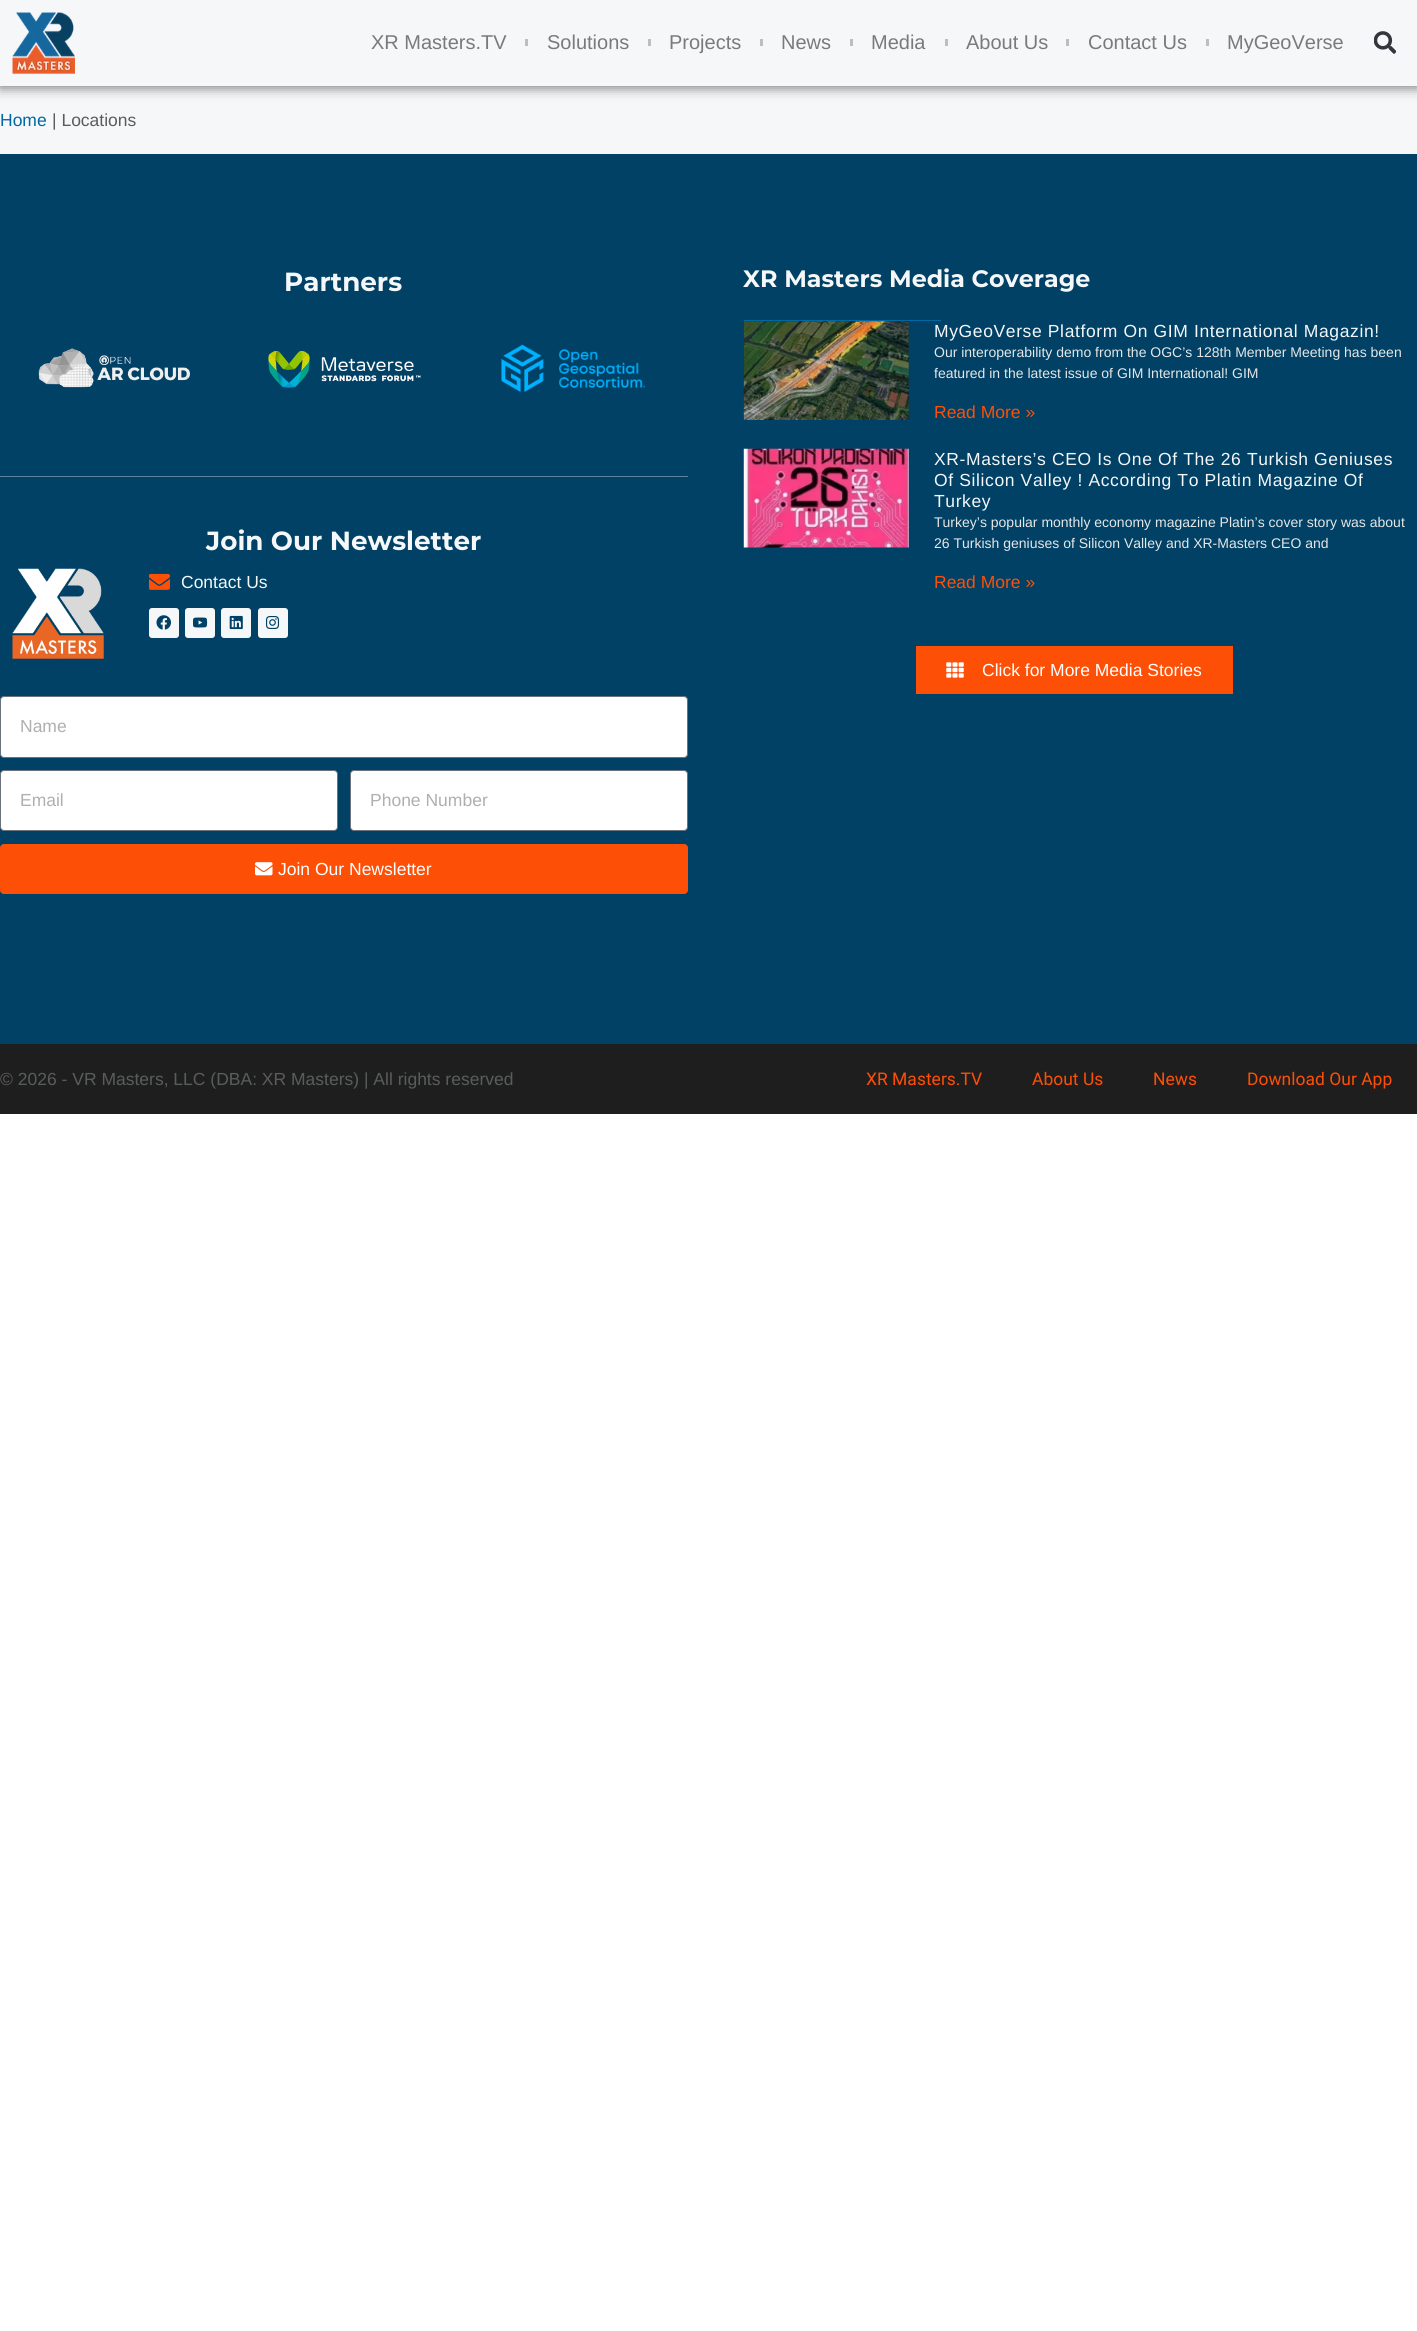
#include <cairo.h>
#include <math.h>
#include <stddef.h>


static void rgb(cairo_t *cr, int r, int g, int b)
{
	cairo_set_source_rgb(cr, r / 255.0, g / 255.0, b / 255.0);
}

static void face(cairo_t *cr, const char *family, double size, int italic, int bold)
{
	cairo_select_font_face(cr, family, italic ? CAIRO_FONT_SLANT_ITALIC : CAIRO_FONT_SLANT_NORMAL,
		bold ? CAIRO_FONT_WEIGHT_BOLD : CAIRO_FONT_WEIGHT_NORMAL);
	cairo_set_font_size(cr, size);
}

static void label(cairo_t *cr, double x, double y, const char *s)
{
	cairo_move_to(cr, x, y);
	cairo_show_text(cr, s);
}

static void tracked(cairo_t *cr, double x, double y, const char *s, double letter, double word)
{
	cairo_move_to(cr, x, y);
	while (*s) {
		char ch[5] = {0};
		int n = 0;
		do ch[n++] = *s++; while ((*s & 0xC0) == 0x80);
		cairo_show_text(cr, ch);
		cairo_rel_move_to(cr, letter + word * (*ch == ' '), 0);
	}
}

static void rect(cairo_t *cr, double x, double y, double w, double h)
{
	cairo_rectangle(cr, x, y, w, h);
	cairo_fill(cr);
}

static void rrect(cairo_t *cr, double x, double y, double w, double h, double r)
{
	cairo_new_sub_path(cr);
	cairo_arc(cr, x + w - r, y + h - r, r, 0, M_PI / 2);
	cairo_arc(cr, x + r, y + h - r, r, M_PI / 2, M_PI);
	cairo_arc(cr, x + r, y + r, r, M_PI, 1.5 * M_PI);
	cairo_arc(cr, x + w - r, y + r, r, 1.5 * M_PI, 2 * M_PI);
	cairo_close_path(cr);
}

static void soft_shadow(cairo_t *cr, double x, double y, double w, double h, double r, double blur, double alpha)
{
	cairo_push_group_with_content(cr, CAIRO_CONTENT_ALPHA);
	cairo_set_operator(cr, CAIRO_OPERATOR_SOURCE);
	for (int i = 15; i >= -15 && fmin(w, h) + blur * i / 3 > 0; i -= 2) {
		double e = blur * i / 6;
		cairo_set_source_rgba(cr, 0, 0, 0, alpha * erfc((i - 1) / 8.5) / 2);
		rrect(cr, x - e, y - e, w + 2 * e, h + 2 * e, fmax(0, fmin(r + e + blur * .6, fmin(w, h) / 2 + e)));
		cairo_fill(cr);
	}
	cairo_pattern_t *soft = cairo_pop_group(cr);
	cairo_mask(cr, soft);
	cairo_pattern_destroy(soft);
}

static void image(cairo_t *cr, const char *path, double x, double y, double w, double h)
{
	cairo_surface_t *image = cairo_image_surface_create_from_png(path);
	cairo_save(cr);
	cairo_set_source_surface(cr, image, x, y);
	cairo_rectangle(cr, x, y, w, h);
	cairo_fill(cr);
	cairo_restore(cr);
	cairo_surface_destroy(image);
}

static void draw(cairo_t *cr) {
	rgb(cr, 255, 255, 255);
	cairo_paint(cr);
	rgb(cr, 245, 247, 249);
	rect(cr, 0, 86, 1417, 68);
	rgb(cr, 0, 0, 0);
	soft_shadow(cr, 0, 1, 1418, 87, 0, 6, 0.5);
	rgb(cr, 245, 247, 249);
	rect(cr, 0, 0, 1417, 86);
	image(cr, "image0.png", 12, 12, 63, 62);
	face(cr, "Liberation Sans", 20, 0, 0);
	rgb(cr, 122, 122, 122);
	label(cr, 371, 49, "XR Masters.TV");
	rgb(cr, 190, 190, 190);
	rect(cr, 525, 39, 3, 7);
	rgb(cr, 122, 122, 122);
	label(cr, 547, 49, "Solutions");
	rgb(cr, 190, 190, 190);
	rect(cr, 648, 39, 3, 7);
	rgb(cr, 122, 122, 122);
	label(cr, 669, 49, "Projects");
	rgb(cr, 190, 190, 190);
	rect(cr, 760, 39, 3, 7);
	rgb(cr, 122, 122, 122);
	label(cr, 781, 49, "News");
	rgb(cr, 190, 190, 190);
	rect(cr, 850, 39, 3, 7);
	rgb(cr, 122, 122, 122);
	label(cr, 871, 49, "Media");
	rgb(cr, 190, 190, 190);
	rect(cr, 945, 39, 3, 7);
	rgb(cr, 122, 122, 122);
	label(cr, 966, 49, "About Us");
	rgb(cr, 190, 190, 190);
	rect(cr, 1066, 39, 3, 7);
	rgb(cr, 122, 122, 122);
	label(cr, 1088, 49, "Contact Us");
	rgb(cr, 190, 190, 190);
	rect(cr, 1206, 39, 3, 7);
	rgb(cr, 122, 122, 122);
	label(cr, 1227, 49, "MyGeoVerse");
	image(cr, "image1.png", 1374, 31, 22, 23);
	face(cr, "Liberation Sans", 17.5, 0, 0);
	rgb(cr, 0, 104, 163);
	label(cr, 0, 126, "Home");
	rgb(cr, 89, 92, 93);
	label(cr, 52, 126, "| Locations");
	rgb(cr, 30, 30, 30);
	rect(cr, 0, 1044, 1417, 70);
	rgb(cr, 0, 65, 101);
	rect(cr, 0, 154, 1417, 890);
	face(cr, "Montserrat Thin", 26.25, 0, 0);
	rgb(cr, 245, 247, 249);
	label(cr, 284, 291, "Partners");
	image(cr, "image2.png", 38, 348, 152, 40);
	image(cr, "image3.png", 268, 351, 153, 37);
	image(cr, "image4.png", 501, 344, 145, 49);
	rgb(cr, 92, 133, 156);
	rect(cr, 0, 476, 688, 1);
	rgb(cr, 245, 247, 249);
	label(cr, 206, 550, "Join Our Newsletter");
	image(cr, "image5.png", 12, 568, 92, 91);
	image(cr, "image6.png", 149, 573, 21, 17);
	face(cr, "Liberation Sans", 17.5, 0, 0);
	label(cr, 181, 588, "Contact Us");
	rrect(cr, 149, 608, 30, 30, 3);
	cairo_fill(cr);
	image(cr, "image7.png", 156, 615, 15, 15);
	rrect(cr, 185, 608, 30, 30, 3);
	cairo_fill(cr);
	image(cr, "image8.png", 193, 617, 15, 11);
	rrect(cr, 221, 608, 30, 30, 3);
	cairo_fill(cr);
	image(cr, "image9.png", 229, 615, 14, 15);
	rrect(cr, 258, 608, 30, 30, 3);
	cairo_fill(cr);
	image(cr, "image10.png", 266, 616, 14, 13);
	rgb(cr, 255, 255, 255);
	rrect(cr, 0.5, 696.5, 687, 61, 3.5);
	cairo_fill_preserve(cr);
	rgb(cr, 105, 114, 125);
	cairo_set_line_width(cr, 1);
	cairo_stroke(cr);
	rgb(cr, 175, 175, 175);
	label(cr, 20, 732, "Name");
	rgb(cr, 255, 255, 255);
	rrect(cr, 0.5, 770.5, 337, 60, 3.5);
	cairo_fill_preserve(cr);
	rgb(cr, 105, 114, 125);
	cairo_stroke(cr);
	rgb(cr, 175, 175, 175);
	label(cr, 20, 806, "Email");
	rgb(cr, 255, 255, 255);
	rrect(cr, 350.5, 770.5, 337, 60, 3.5);
	cairo_fill_preserve(cr);
	rgb(cr, 105, 114, 125);
	cairo_stroke(cr);
	rgb(cr, 175, 175, 175);
	label(cr, 370, 806, "Phone Number");
	rgb(cr, 254, 79, 6);
	rrect(cr, 0, 844, 688, 50, 4);
	cairo_fill(cr);
	image(cr, "image11.png", 255, 862, 18, 14);
	rgb(cr, 255, 255, 255);
	label(cr, 278, 875, "Join Our Newsletter");
	face(cr, "Montserrat Thin", 23.75, 0, 0);
	rgb(cr, 245, 247, 249);
	label(cr, 743, 287, "XR Masters Media Coverage");
	rgb(cr, 0, 104, 163);
	rect(cr, 744, 320, 197, 1);
	image(cr, "image12.png", 743, 321, 166, 99);
	face(cr, "Liberation Sans", 17.5, 0, 0);
	rgb(cr, 245, 247, 249);
	tracked(cr, 934, 337, "MyGeoVerse Platform On GIM International Magazin!", 0.62, 0);
	face(cr, "Liberation Sans", 14, 0, 0);
	rgb(cr, 230, 230, 230);
	label(cr, 934, 357, "Our interoperability demo from the OGC’s 128th Member Meeting has been");
	label(cr, 934, 378, "featured in the latest issue of GIM International! GIM");
	face(cr, "Liberation Sans", 17.5, 0, 0);
	rgb(cr, 254, 79, 6);
	label(cr, 934, 418, "Read More »");
	image(cr, "image13.png", 743, 448, 166, 100);
	rgb(cr, 245, 247, 249);
	tracked(cr, 934, 465, "XR-Masters’s CEO Is One Of The 26 Turkish Geniuses", 0.62, 0);
	tracked(cr, 934, 486, "Of Silicon Valley ! According To Platin Magazine Of", 0.62, 0);
	tracked(cr, 934, 507, "Turkey", 0.62, 0);
	face(cr, "Liberation Sans", 14, 0, 0);
	rgb(cr, 230, 230, 230);
	label(cr, 934, 527, "Turkey’s popular monthly economy magazine Platin’s cover story was about");
	label(cr, 934, 548, "26 Turkish geniuses of Silicon Valley and XR-Masters CEO and");
	face(cr, "Liberation Sans", 17.5, 0, 0);
	rgb(cr, 254, 79, 6);
	label(cr, 934, 588, "Read More »");
	rect(cr, 916, 646, 317, 48);
	image(cr, "image14.png", 946, 662, 18, 16);
	rgb(cr, 255, 255, 255);
	label(cr, 982, 676, "Click for More Media Stories");
	rgb(cr, 89, 92, 93);
	label(cr, 0, 1085, "© 2026 - VR Masters, LLC (DBA: XR Masters) | All rights reserved");
	face(cr, "Roboto", 17.5, 0, 0);
	rgb(cr, 254, 79, 6);
	label(cr, 866, 1085, "XR Masters.TV");
	label(cr, 1032, 1085, "About Us");
	label(cr, 1153, 1085, "News");
	label(cr, 1247, 1085, "Download Our App");
}

int main(void) {
	cairo_surface_t *surface = cairo_image_surface_create(CAIRO_FORMAT_RGB24, 1417, 2331);
	cairo_t *cr = cairo_create(surface);
	cairo_font_options_t *options = cairo_font_options_create();
	cairo_font_options_set_hint_metrics(options, CAIRO_HINT_METRICS_OFF);
	cairo_font_options_set_hint_style(options, CAIRO_HINT_STYLE_NONE);
	cairo_set_font_options(cr, options);
	cairo_set_miter_limit(cr, 4);
	draw(cr);
	cairo_surface_write_to_png(surface, "render.png");
	cairo_font_options_destroy(options);
	cairo_destroy(cr);
	cairo_surface_destroy(surface);
	return 0;
}
